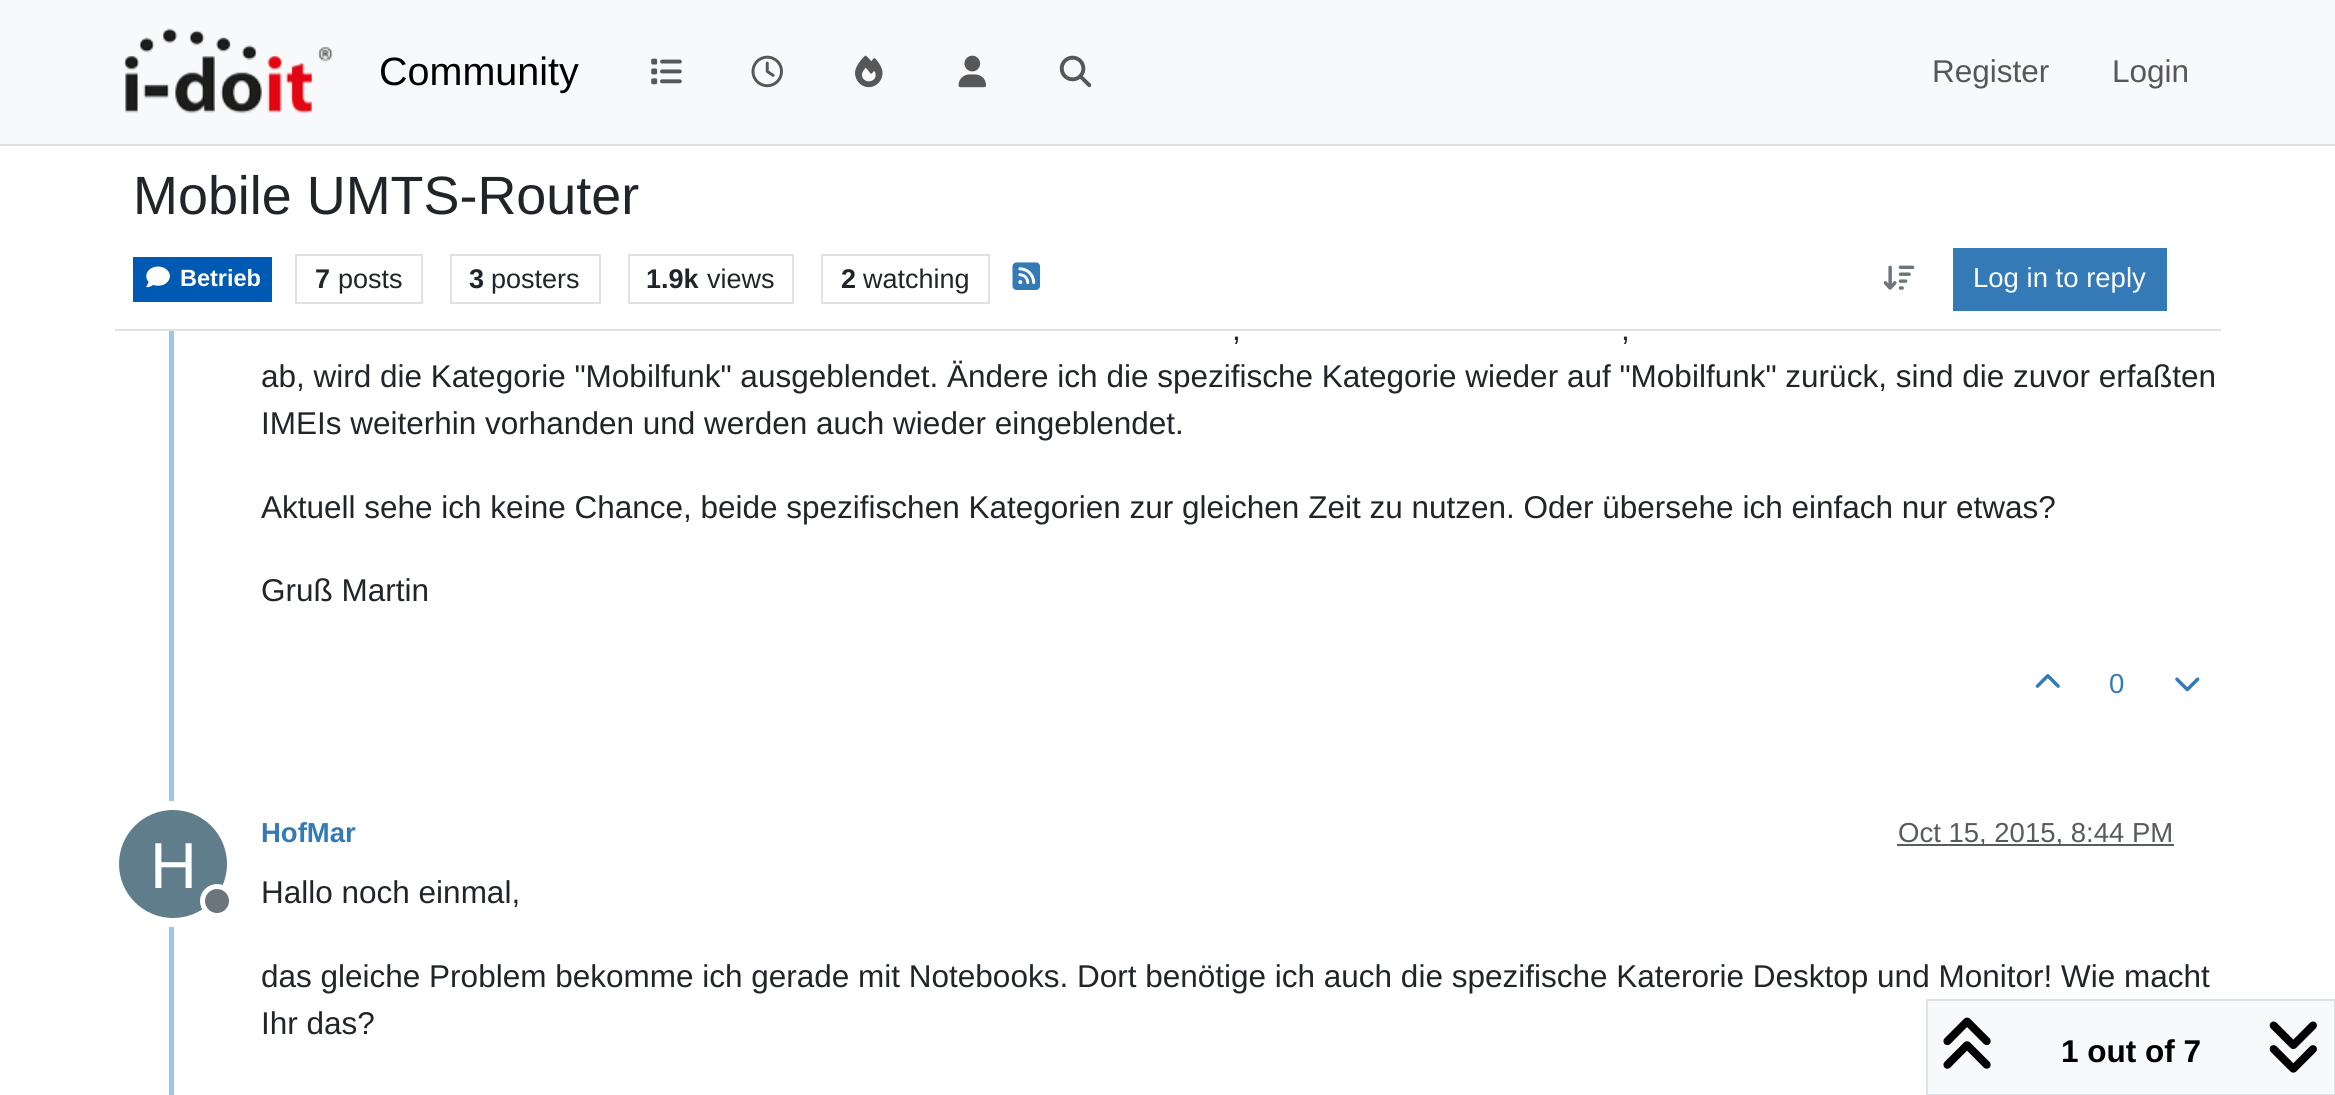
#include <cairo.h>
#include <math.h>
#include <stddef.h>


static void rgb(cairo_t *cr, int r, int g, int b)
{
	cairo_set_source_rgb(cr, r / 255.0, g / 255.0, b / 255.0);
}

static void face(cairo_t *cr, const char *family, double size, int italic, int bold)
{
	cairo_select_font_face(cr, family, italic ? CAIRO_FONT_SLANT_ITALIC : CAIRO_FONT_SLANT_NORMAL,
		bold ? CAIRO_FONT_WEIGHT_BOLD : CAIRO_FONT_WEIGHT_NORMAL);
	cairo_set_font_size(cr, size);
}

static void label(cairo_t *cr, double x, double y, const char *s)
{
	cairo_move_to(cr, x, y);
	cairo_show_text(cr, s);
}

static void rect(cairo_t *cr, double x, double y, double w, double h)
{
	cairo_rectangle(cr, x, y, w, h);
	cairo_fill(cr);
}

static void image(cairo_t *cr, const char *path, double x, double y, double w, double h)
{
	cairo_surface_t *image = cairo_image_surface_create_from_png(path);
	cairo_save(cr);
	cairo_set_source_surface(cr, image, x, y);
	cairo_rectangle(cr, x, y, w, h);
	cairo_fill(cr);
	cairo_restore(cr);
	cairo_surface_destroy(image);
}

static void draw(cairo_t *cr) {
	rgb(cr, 255, 255, 255);
	cairo_paint(cr);
	rgb(cr, 248, 249, 250);
	rect(cr, 0, 0, 2335, 144);
	rgb(cr, 222, 226, 230);
	rect(cr, 0, 144, 2335, 2);
	image(cr, "image0.png", 124, 28, 209, 86);
	face(cr, "Liberation Sans", 39.5, 0, 0);
	rgb(cr, 0, 0, 0);
	label(cr, 379, 85, "Community");
	image(cr, "image1.png", 651, 58, 31, 27);
	image(cr, "image2.png", 751, 55, 32, 33);
	image(cr, "image3.png", 855, 55, 28, 33);
	image(cr, "image4.png", 958, 55, 28, 33);
	image(cr, "image5.png", 1059, 55, 33, 33);
	face(cr, "Liberation Sans", 31.5, 0, 0);
	rgb(cr, 87, 87, 88);
	label(cr, 1932, 82, "Register");
	label(cr, 2112, 82, "Login");
	rgb(cr, 222, 226, 230);
	rect(cr, 115, 329, 2106, 2);
	face(cr, "Liberation Sans", 53.9, 0, 0);
	rgb(cr, 33, 37, 41);
	label(cr, 133, 214, "Mobile UMTS-Router");
	rgb(cr, 0, 89, 178);
	rect(cr, 133, 257, 139, 45);
	image(cr, "image6.png", 146, 266, 24, 22);
	face(cr, "Liberation Sans", 23.5, 0, 1);
	rgb(cr, 255, 255, 255);
	label(cr, 180, 286, "Betrieb");
	cairo_rectangle(cr, 296, 255, 126, 48);
	rgb(cr, 222, 226, 230);
	cairo_stroke(cr);
	face(cr, "Liberation Sans", 27, 0, 1);
	rgb(cr, 33, 37, 41);
	label(cr, 315, 288, "7");
	face(cr, "Liberation Sans", 27, 0, 0);
	label(cr, 338, 288, "posts");
	cairo_rectangle(cr, 451, 255, 149, 48);
	rgb(cr, 222, 226, 230);
	cairo_stroke(cr);
	face(cr, "Liberation Sans", 27, 0, 1);
	rgb(cr, 33, 37, 41);
	label(cr, 469, 288, "3");
	face(cr, "Liberation Sans", 27, 0, 0);
	label(cr, 491, 288, "posters");
	cairo_rectangle(cr, 629, 255, 164, 48);
	rgb(cr, 222, 226, 230);
	cairo_stroke(cr);
	face(cr, "Liberation Sans", 27, 0, 1);
	rgb(cr, 33, 37, 41);
	label(cr, 646, 288, "1.9k");
	face(cr, "Liberation Sans", 27, 0, 0);
	label(cr, 707, 288, "views");
	cairo_rectangle(cr, 822, 255, 167, 48);
	rgb(cr, 222, 226, 230);
	cairo_stroke(cr);
	face(cr, "Liberation Sans", 27, 0, 1);
	rgb(cr, 33, 37, 41);
	label(cr, 841, 288, "2");
	face(cr, "Liberation Sans", 27, 0, 0);
	label(cr, 863, 288, "watching");
	image(cr, "image7.png", 1012, 262, 29, 28);
	image(cr, "image8.png", 1883, 265, 32, 25);
	rgb(cr, 51, 122, 183);
	rect(cr, 1953, 248, 214, 63);
	face(cr, "Liberation Sans", 27.5, 0, 0);
	rgb(cr, 255, 255, 255);
	label(cr, 1973, 287, "Log in to reply");
	rgb(cr, 160, 196, 228);
	rect(cr, 169, 331, 5, 764);
	face(cr, "Liberation Sans", 31.5, 0, 0);
	rgb(cr, 33, 37, 41);
	label(cr, 1232, 340, ",");
	label(cr, 1621, 340, ",");
	label(cr, 261, 387, "ab, wird die Kategorie \"Mobilfunk\" ausgeblendet. Ändere ich die spezifische Kategorie wieder auf \"Mobilfunk\" zurück, sind die zuvor erfaßten");
	label(cr, 261, 434, "IMEIs weiterhin vorhanden und werden auch wieder eingeblendet.");
	label(cr, 261, 518, "Aktuell sehe ich keine Chance, beide spezifischen Kategorien zur gleichen Zeit zu nutzen. Oder übersehe ich einfach nur etwas?");
	label(cr, 261, 601, "Gruß Martin");
	image(cr, "image9.png", 2035, 674, 25, 14);
	face(cr, "Liberation Sans", 27.5, 0, 0);
	rgb(cr, 51, 122, 183);
	label(cr, 2109, 693, "0");
	image(cr, "image10.png", 2175, 677, 25, 15);
	face(cr, "Liberation Sans", 27.5, 0, 1);
	label(cr, 261, 842, "HofMar");
	rgb(cr, 89, 92, 95);
	rect(cr, 1897, 844, 277, 2);
	face(cr, "Liberation Sans", 27.5, 0, 0);
	rgb(cr, 88, 91, 94);
	label(cr, 1898, 842, "Oct 15, 2015, 8:44 PM");
	cairo_new_path(cr);
	cairo_arc(cr, 173, 864, 58.5, 0, 2 * M_PI);
	rgb(cr, 255, 255, 255);
	cairo_set_line_width(cr, 9);
	cairo_stroke(cr);
	rgb(cr, 96, 125, 139);
	cairo_arc(cr, 173, 864, 54, 0, 2 * M_PI);
	cairo_fill(cr);
	face(cr, "Liberation Sans", 65, 0, 0);
	rgb(cr, 255, 255, 255);
	label(cr, 150, 888, "H");
	rgb(cr, 108, 117, 125);
	cairo_new_path(cr);
	cairo_arc(cr, 217, 901, 14.5, 0, 2 * M_PI);
	cairo_fill_preserve(cr);
	rgb(cr, 255, 255, 255);
	cairo_set_line_width(cr, 5);
	cairo_stroke(cr);
	face(cr, "Liberation Sans", 31.5, 0, 0);
	rgb(cr, 33, 37, 41);
	label(cr, 261, 903, "Hallo noch einmal,");
	label(cr, 261, 987, "das gleiche Problem bekomme ich gerade mit Notebooks. Dort benötige ich auch die spezifische Katerorie Desktop und Monitor! Wie macht");
	label(cr, 261, 1034, "Ihr das?");
	rgb(cr, 248, 249, 250);
	cairo_rectangle(cr, 1927, 1000, 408, 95);
	cairo_fill_preserve(cr);
	rgb(cr, 222, 226, 230);
	cairo_set_line_width(cr, 2);
	cairo_stroke(cr);
	image(cr, "image11.png", 1943, 1017, 48, 52);
	face(cr, "Liberation Sans", 31.5, 0, 1);
	rgb(cr, 0, 0, 0);
	label(cr, 2061, 1062, "1 out of 7");
	image(cr, "image12.png", 2269, 1021, 48, 52);
}

int main(void) {
	cairo_surface_t *surface = cairo_image_surface_create(CAIRO_FORMAT_RGB24, 2335, 1095);
	cairo_t *cr = cairo_create(surface);
	cairo_font_options_t *options = cairo_font_options_create();
	cairo_font_options_set_hint_metrics(options, CAIRO_HINT_METRICS_OFF);
	cairo_font_options_set_hint_style(options, CAIRO_HINT_STYLE_NONE);
	cairo_set_font_options(cr, options);
	cairo_set_miter_limit(cr, 4);
	draw(cr);
	cairo_surface_write_to_png(surface, "render.png");
	cairo_font_options_destroy(options);
	cairo_destroy(cr);
	cairo_surface_destroy(surface);
	return 0;
}
